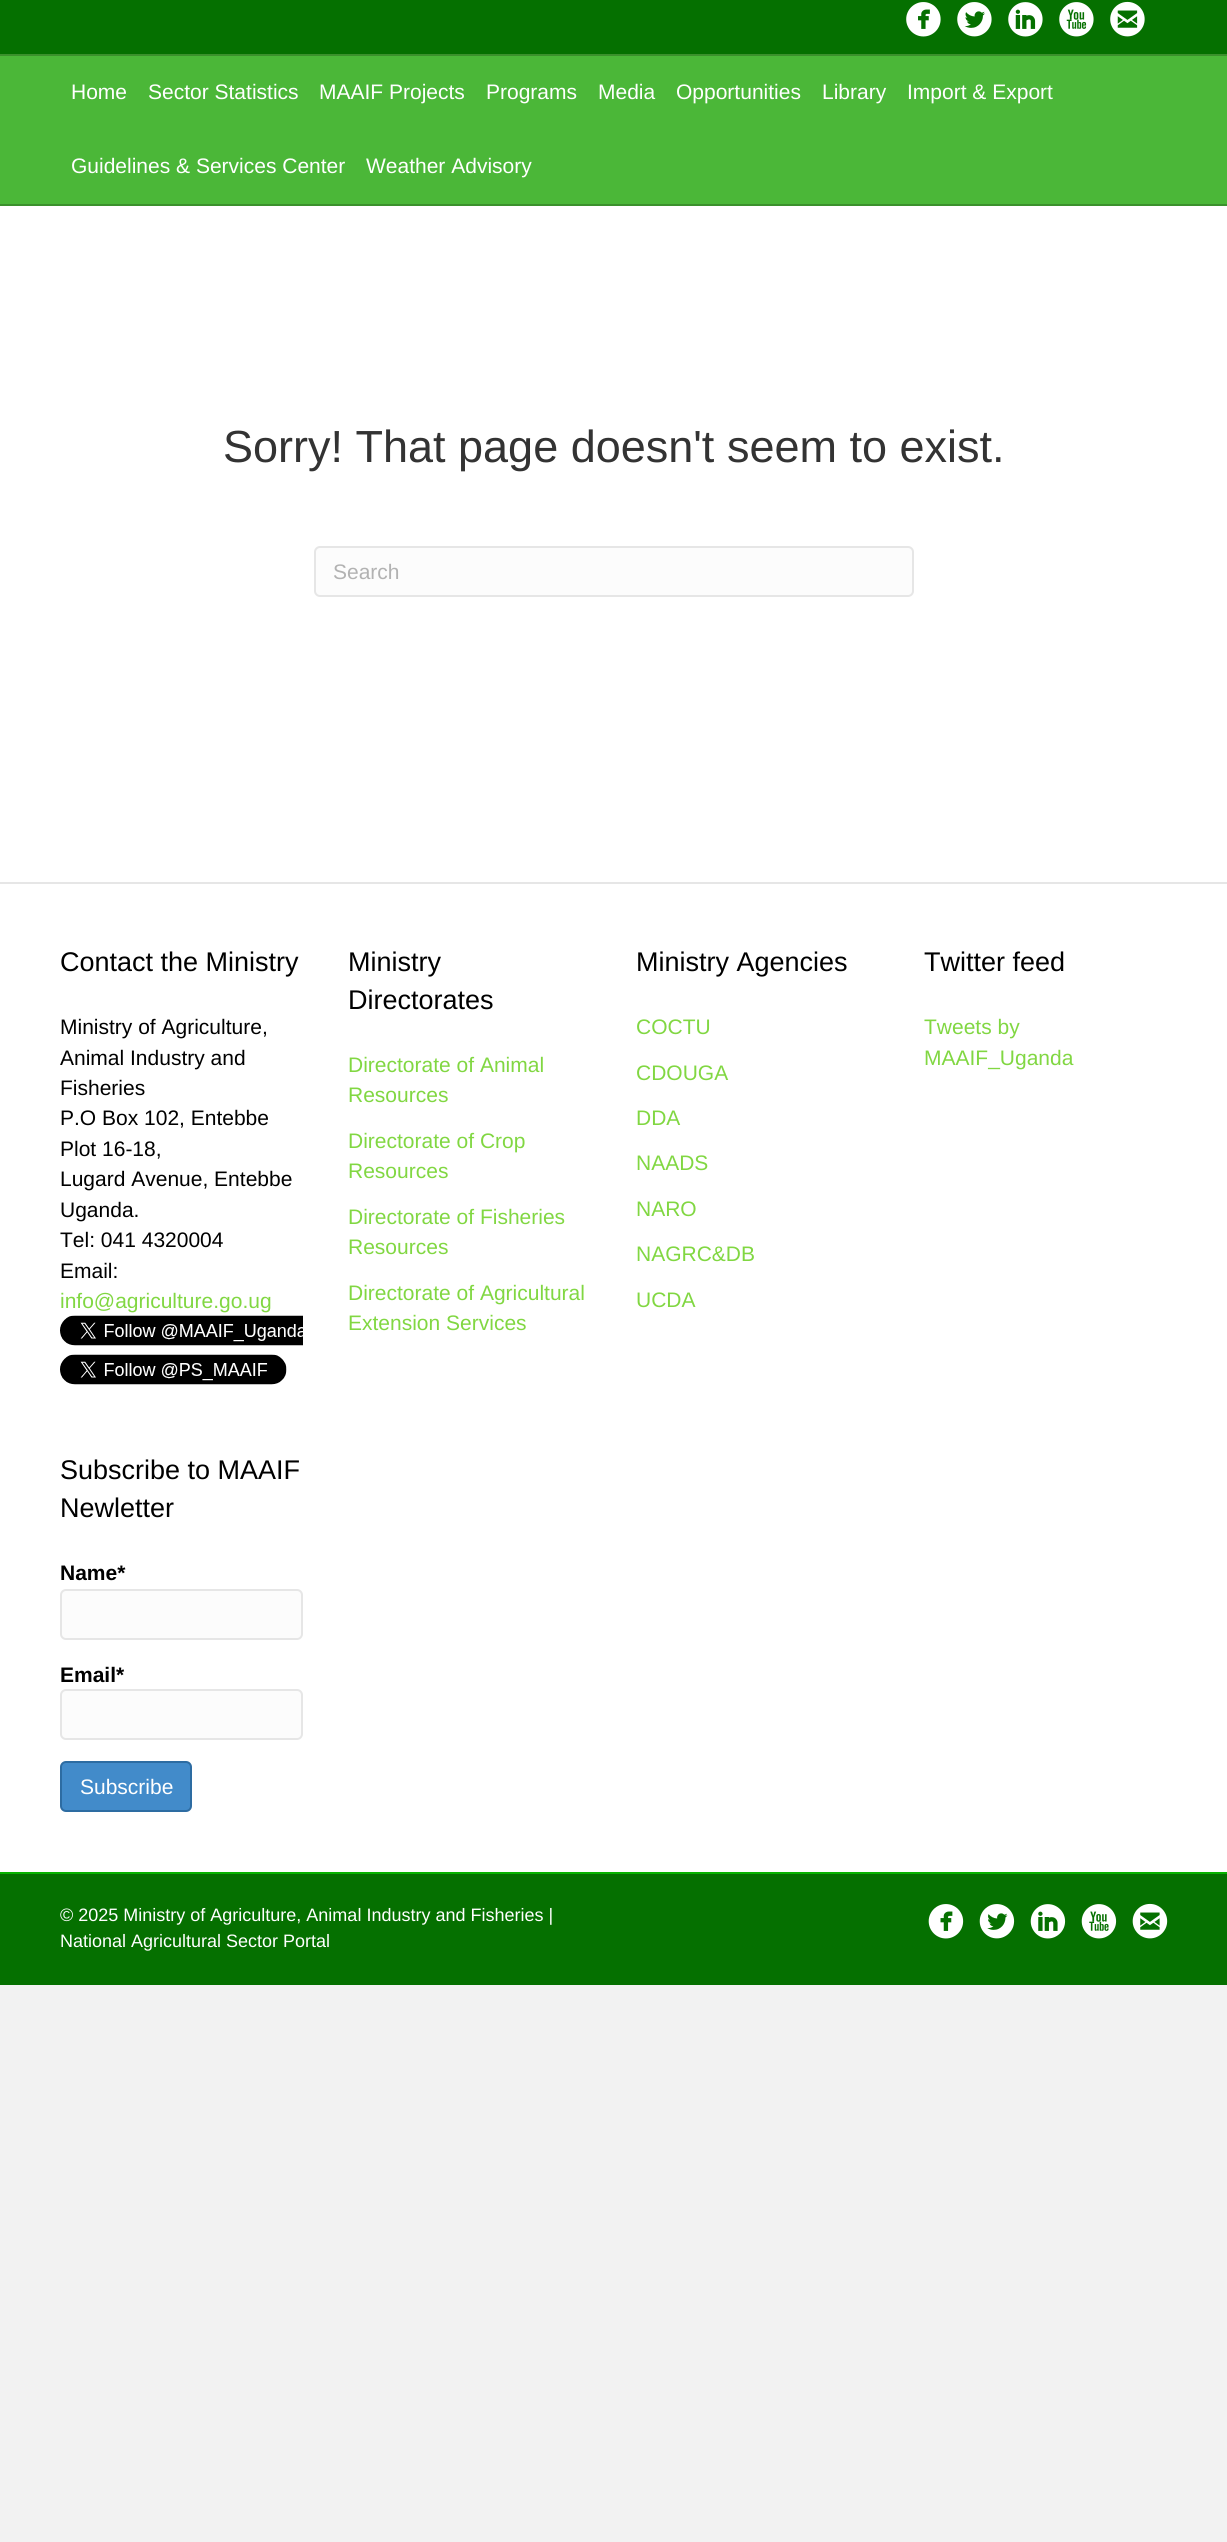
#include <cairo.h>
#include <math.h>
#include <stddef.h>


static void rgb(cairo_t *cr, int r, int g, int b)
{
	cairo_set_source_rgb(cr, r / 255.0, g / 255.0, b / 255.0);
}

static void face(cairo_t *cr, const char *family, double size, int italic, int bold)
{
	cairo_select_font_face(cr, family, italic ? CAIRO_FONT_SLANT_ITALIC : CAIRO_FONT_SLANT_NORMAL,
		bold ? CAIRO_FONT_WEIGHT_BOLD : CAIRO_FONT_WEIGHT_NORMAL);
	cairo_set_font_size(cr, size);
}

static void label(cairo_t *cr, double x, double y, const char *s)
{
	cairo_move_to(cr, x, y);
	cairo_show_text(cr, s);
}

static void rect(cairo_t *cr, double x, double y, double w, double h)
{
	cairo_rectangle(cr, x, y, w, h);
	cairo_fill(cr);
}

static void rrect(cairo_t *cr, double x, double y, double w, double h, double r)
{
	cairo_new_sub_path(cr);
	cairo_arc(cr, x + w - r, y + h - r, r, 0, M_PI / 2);
	cairo_arc(cr, x + r, y + h - r, r, M_PI / 2, M_PI);
	cairo_arc(cr, x + r, y + r, r, M_PI, 1.5 * M_PI);
	cairo_arc(cr, x + w - r, y + r, r, 1.5 * M_PI, 2 * M_PI);
	cairo_close_path(cr);
}

static void image(cairo_t *cr, const char *path, double x, double y, double w, double h)
{
	cairo_surface_t *image = cairo_image_surface_create_from_png(path);
	cairo_save(cr);
	cairo_set_source_surface(cr, image, x, y);
	cairo_rectangle(cr, x, y, w, h);
	cairo_fill(cr);
	cairo_restore(cr);
	cairo_surface_destroy(image);
}

static void draw(cairo_t *cr) {
	rgb(cr, 242, 242, 242);
	cairo_paint(cr);
	rgb(cr, 5, 112, 0);
	rect(cr, 0, 0, 1227, 54);
	image(cr, "image0.png", 906, 2, 35, 35);
	image(cr, "image1.png", 957, 2, 35, 35);
	image(cr, "image2.png", 1008, 2, 35, 35);
	image(cr, "image3.png", 1059, 2, 35, 35);
	image(cr, "image4.png", 1110, 1, 35, 36);
	rgb(cr, 75, 183, 56);
	rect(cr, 0, 56, 1227, 148);
	rgb(cr, 59, 144, 44);
	rect(cr, 0, 54, 1227, 2);
	rect(cr, 0, 204, 1227, 2);
	face(cr, "Liberation Sans", 21, 0, 0);
	rgb(cr, 255, 255, 255);
	label(cr, 71, 99, "Home");
	label(cr, 148, 99, "Sector Statistics");
	label(cr, 319, 99, "MAAIF Projects");
	label(cr, 486, 99, "Programs");
	label(cr, 598, 99, "Media");
	label(cr, 676, 99, "Opportunities");
	label(cr, 822, 99, "Library");
	label(cr, 907, 99, "Import & Export");
	label(cr, 71, 173, "Guidelines & Services Center");
	label(cr, 366, 173, "Weather Advisory");
	rect(cr, 0, 206, 1227, 676);
	face(cr, "Liberation Sans", 45, 0, 0);
	rgb(cr, 51, 51, 51);
	label(cr, 223, 462, "Sorry! That page doesn't seem to exist.");
	rgb(cr, 252, 252, 252);
	rrect(cr, 315, 547, 598, 49, 5);
	cairo_fill_preserve(cr);
	rgb(cr, 230, 230, 230);
	cairo_stroke(cr);
	face(cr, "Liberation Sans", 21, 0, 0);
	rgb(cr, 178, 178, 178);
	label(cr, 333, 579, "Search");
	rgb(cr, 255, 255, 255);
	rect(cr, 0, 884, 1227, 988);
	rgb(cr, 230, 230, 230);
	rect(cr, 0, 882, 1227, 2);
	face(cr, "Liberation Sans", 27, 0, 0);
	rgb(cr, 0, 0, 0);
	label(cr, 60, 971, "Contact the Ministry");
	face(cr, "Liberation Sans", 21, 0, 0);
	label(cr, 60, 1034, "Ministry of Agriculture,");
	label(cr, 60, 1065, "Animal Industry and");
	label(cr, 60, 1095, "Fisheries");
	label(cr, 60, 1125, "P.O Box 102, Entebbe");
	label(cr, 60, 1156, "Plot 16-18,");
	label(cr, 60, 1186, "Lugard Avenue, Entebbe");
	label(cr, 60, 1217, "Uganda.");
	label(cr, 60, 1247, "Tel: 041 4320004");
	label(cr, 60, 1278, "Email:");
	rgb(cr, 129, 215, 66);
	label(cr, 60, 1308, "info@agriculture.go.ug");
	image(cr, "image5.png", 60, 1315, 243, 31);
	image(cr, "image6.png", 60, 1354, 227, 31);
	face(cr, "Liberation Sans", 27, 0, 0);
	rgb(cr, 0, 0, 0);
	label(cr, 60, 1479, "Subscribe to MAAIF");
	label(cr, 60, 1517, "Newletter");
	face(cr, "Liberation Sans", 21, 0, 1);
	label(cr, 60, 1580, "Name*");
	rgb(cr, 252, 252, 252);
	rrect(cr, 61, 1590, 241, 49, 5);
	cairo_fill_preserve(cr);
	rgb(cr, 230, 230, 230);
	cairo_stroke(cr);
	rgb(cr, 0, 0, 0);
	label(cr, 60, 1682, "Email*");
	rgb(cr, 252, 252, 252);
	rrect(cr, 61, 1690, 241, 49, 5);
	cairo_fill_preserve(cr);
	rgb(cr, 230, 230, 230);
	cairo_stroke(cr);
	rgb(cr, 66, 139, 202);
	rrect(cr, 61, 1762, 130, 49, 5);
	cairo_fill_preserve(cr);
	rgb(cr, 45, 108, 162);
	cairo_stroke(cr);
	face(cr, "Liberation Sans", 21, 0, 0);
	rgb(cr, 255, 255, 255);
	label(cr, 80, 1794, "Subscribe");
	face(cr, "Liberation Sans", 27, 0, 0);
	rgb(cr, 0, 0, 0);
	label(cr, 348, 971, "Ministry");
	label(cr, 348, 1009, "Directorates");
	face(cr, "Liberation Sans", 21, 0, 0);
	rgb(cr, 129, 215, 66);
	label(cr, 348, 1072, "Directorate of Animal");
	label(cr, 348, 1102, "Resources");
	label(cr, 348, 1148, "Directorate of Crop");
	label(cr, 348, 1178, "Resources");
	label(cr, 348, 1224, "Directorate of Fisheries");
	label(cr, 348, 1254, "Resources");
	label(cr, 348, 1300, "Directorate of Agricultural");
	label(cr, 348, 1330, "Extension Services");
	face(cr, "Liberation Sans", 27, 0, 0);
	rgb(cr, 0, 0, 0);
	label(cr, 636, 971, "Ministry Agencies");
	face(cr, "Liberation Sans", 21, 0, 0);
	rgb(cr, 129, 215, 66);
	label(cr, 636, 1034, "COCTU");
	label(cr, 636, 1080, "CDOUGA");
	label(cr, 636, 1125, "DDA");
	label(cr, 636, 1170, "NAADS");
	label(cr, 636, 1216, "NARO");
	label(cr, 636, 1261, "NAGRC&DB");
	label(cr, 636, 1307, "UCDA");
	face(cr, "Liberation Sans", 27, 0, 0);
	rgb(cr, 0, 0, 0);
	label(cr, 924, 971, "Twitter feed");
	face(cr, "Liberation Sans", 21, 0, 0);
	rgb(cr, 129, 215, 66);
	label(cr, 924, 1034, "Tweets by");
	label(cr, 924, 1065, "MAAIF_Uganda");
	rgb(cr, 5, 112, 0);
	rect(cr, 0, 1874, 1227, 111);
	rgb(cr, 8, 178, 0);
	rect(cr, 0, 1872, 1227, 2);
	face(cr, "Liberation Sans", 18, 0, 0);
	rgb(cr, 255, 255, 255);
	label(cr, 60, 1921, "© 2025 Ministry of Agriculture, Animal Industry and Fisheries |");
	label(cr, 60, 1947, "National Agricultural Sector Portal");
	image(cr, "image7.png", 928, 1904, 36, 35);
	image(cr, "image8.png", 979, 1904, 36, 35);
	image(cr, "image9.png", 1030, 1904, 36, 35);
	image(cr, "image10.png", 1081, 1904, 36, 35);
	image(cr, "image11.png", 1132, 1903, 36, 36);
}

int main(void) {
	cairo_surface_t *surface = cairo_image_surface_create(CAIRO_FORMAT_RGB24, 1227, 2542);
	cairo_t *cr = cairo_create(surface);
	cairo_font_options_t *options = cairo_font_options_create();
	cairo_font_options_set_hint_metrics(options, CAIRO_HINT_METRICS_OFF);
	cairo_font_options_set_hint_style(options, CAIRO_HINT_STYLE_NONE);
	cairo_set_font_options(cr, options);
	cairo_set_miter_limit(cr, 4);
	draw(cr);
	cairo_surface_write_to_png(surface, "render.png");
	cairo_font_options_destroy(options);
	cairo_destroy(cr);
	cairo_surface_destroy(surface);
	return 0;
}
